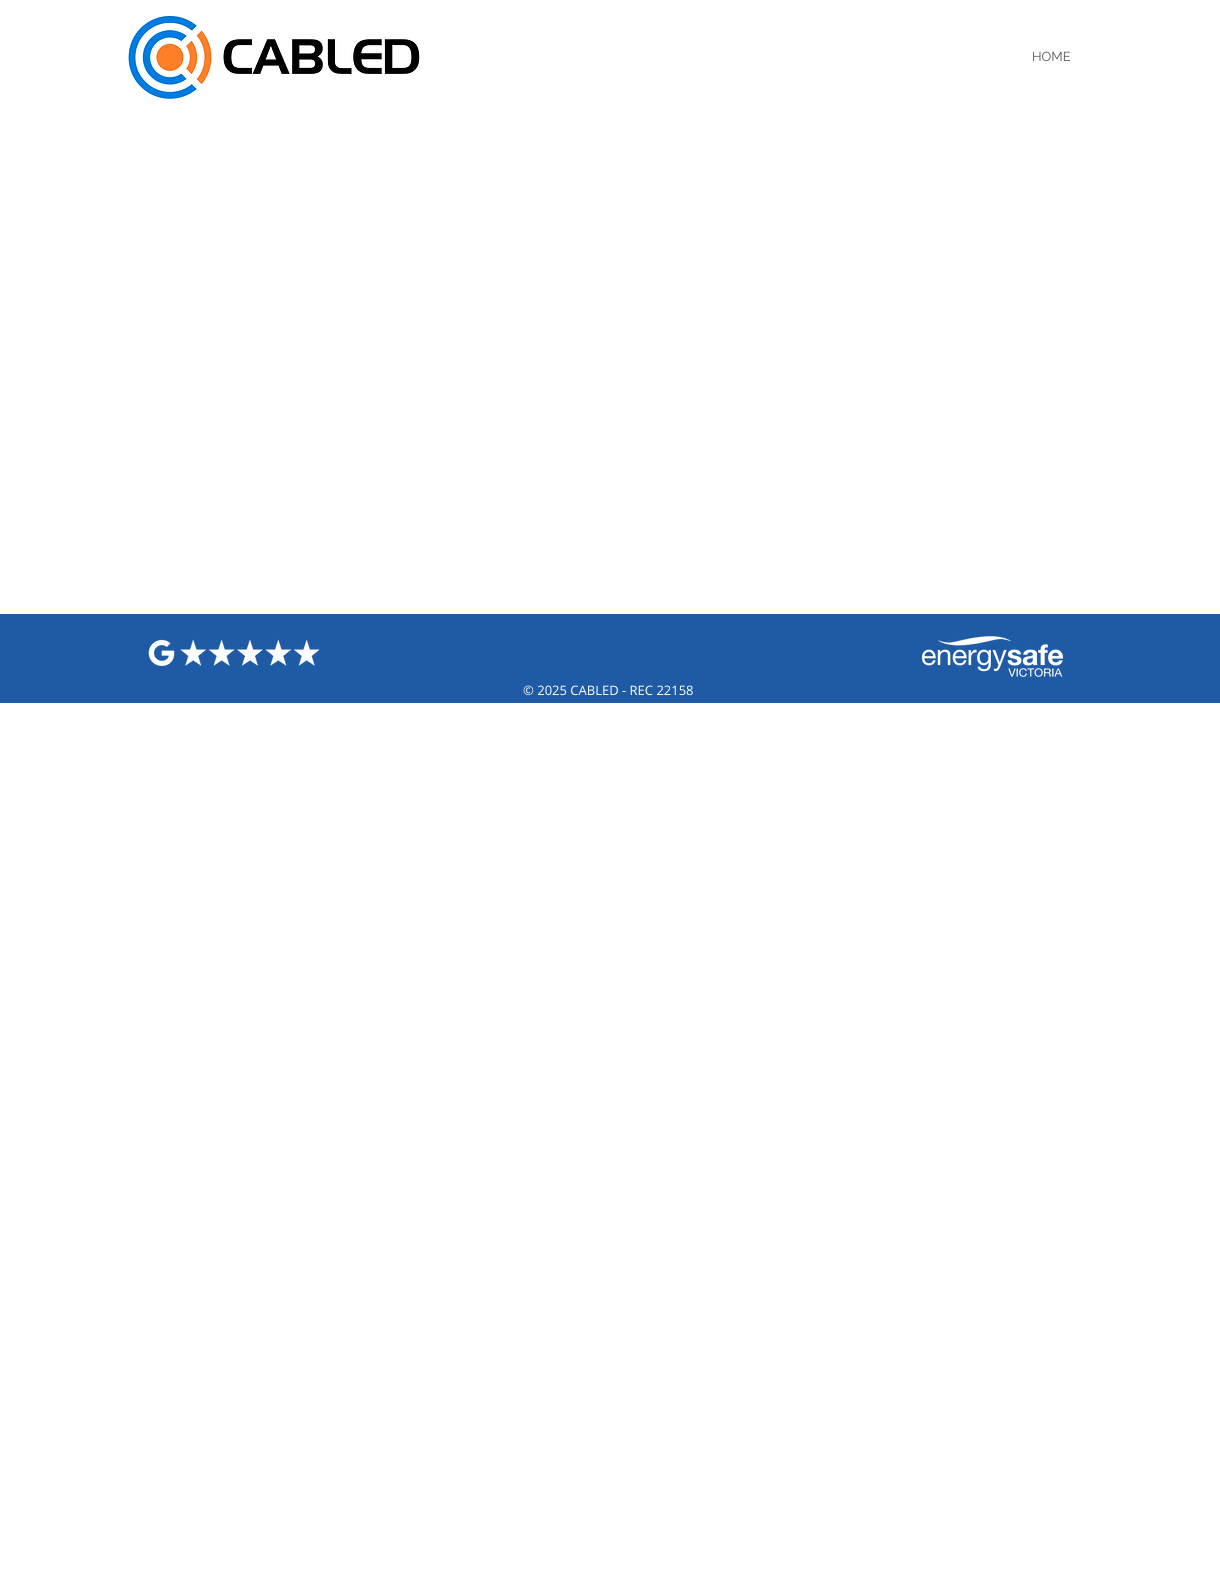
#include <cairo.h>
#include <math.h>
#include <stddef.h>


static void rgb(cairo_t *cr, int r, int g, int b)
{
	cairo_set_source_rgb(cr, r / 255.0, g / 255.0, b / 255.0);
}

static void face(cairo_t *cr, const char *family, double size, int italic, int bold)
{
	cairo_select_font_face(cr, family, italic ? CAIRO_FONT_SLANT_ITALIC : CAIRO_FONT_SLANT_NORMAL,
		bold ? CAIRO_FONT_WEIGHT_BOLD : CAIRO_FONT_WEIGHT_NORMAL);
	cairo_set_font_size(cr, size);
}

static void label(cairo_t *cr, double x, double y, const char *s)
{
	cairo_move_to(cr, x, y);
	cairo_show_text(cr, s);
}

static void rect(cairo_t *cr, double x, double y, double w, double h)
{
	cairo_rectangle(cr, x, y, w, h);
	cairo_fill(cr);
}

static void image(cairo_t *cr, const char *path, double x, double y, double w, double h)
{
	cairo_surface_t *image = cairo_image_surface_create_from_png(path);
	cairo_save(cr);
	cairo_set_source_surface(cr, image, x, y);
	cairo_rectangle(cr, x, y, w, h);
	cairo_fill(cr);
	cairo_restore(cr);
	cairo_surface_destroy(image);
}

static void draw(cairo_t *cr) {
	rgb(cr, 255, 255, 255);
	cairo_paint(cr);
	image(cr, "image0.png", 128, 15, 292, 84);
	face(cr, "Raleway", 13, 0, 0);
	rgb(cr, 85, 85, 85);
	label(cr, 1032, 61, "HOME");
	rgb(cr, 31, 91, 165);
	rect(cr, 0, 614, 1220, 89);
	image(cr, "image1.png", 148, 639, 172, 28);
	image(cr, "image2.png", 922, 636, 141, 41);
	face(cr, "Open Sans", 13, 0, 0);
	rgb(cr, 255, 255, 255);
	label(cr, 523, 695, "© 2025 CABLED - REC 22158");
}

int main(void) {
	cairo_surface_t *surface = cairo_image_surface_create(CAIRO_FORMAT_RGB24, 1220, 1573);
	cairo_t *cr = cairo_create(surface);
	cairo_font_options_t *options = cairo_font_options_create();
	cairo_font_options_set_hint_metrics(options, CAIRO_HINT_METRICS_OFF);
	cairo_font_options_set_hint_style(options, CAIRO_HINT_STYLE_NONE);
	cairo_set_font_options(cr, options);
	cairo_set_miter_limit(cr, 4);
	draw(cr);
	cairo_surface_write_to_png(surface, "render.png");
	cairo_font_options_destroy(options);
	cairo_destroy(cr);
	cairo_surface_destroy(surface);
	return 0;
}
